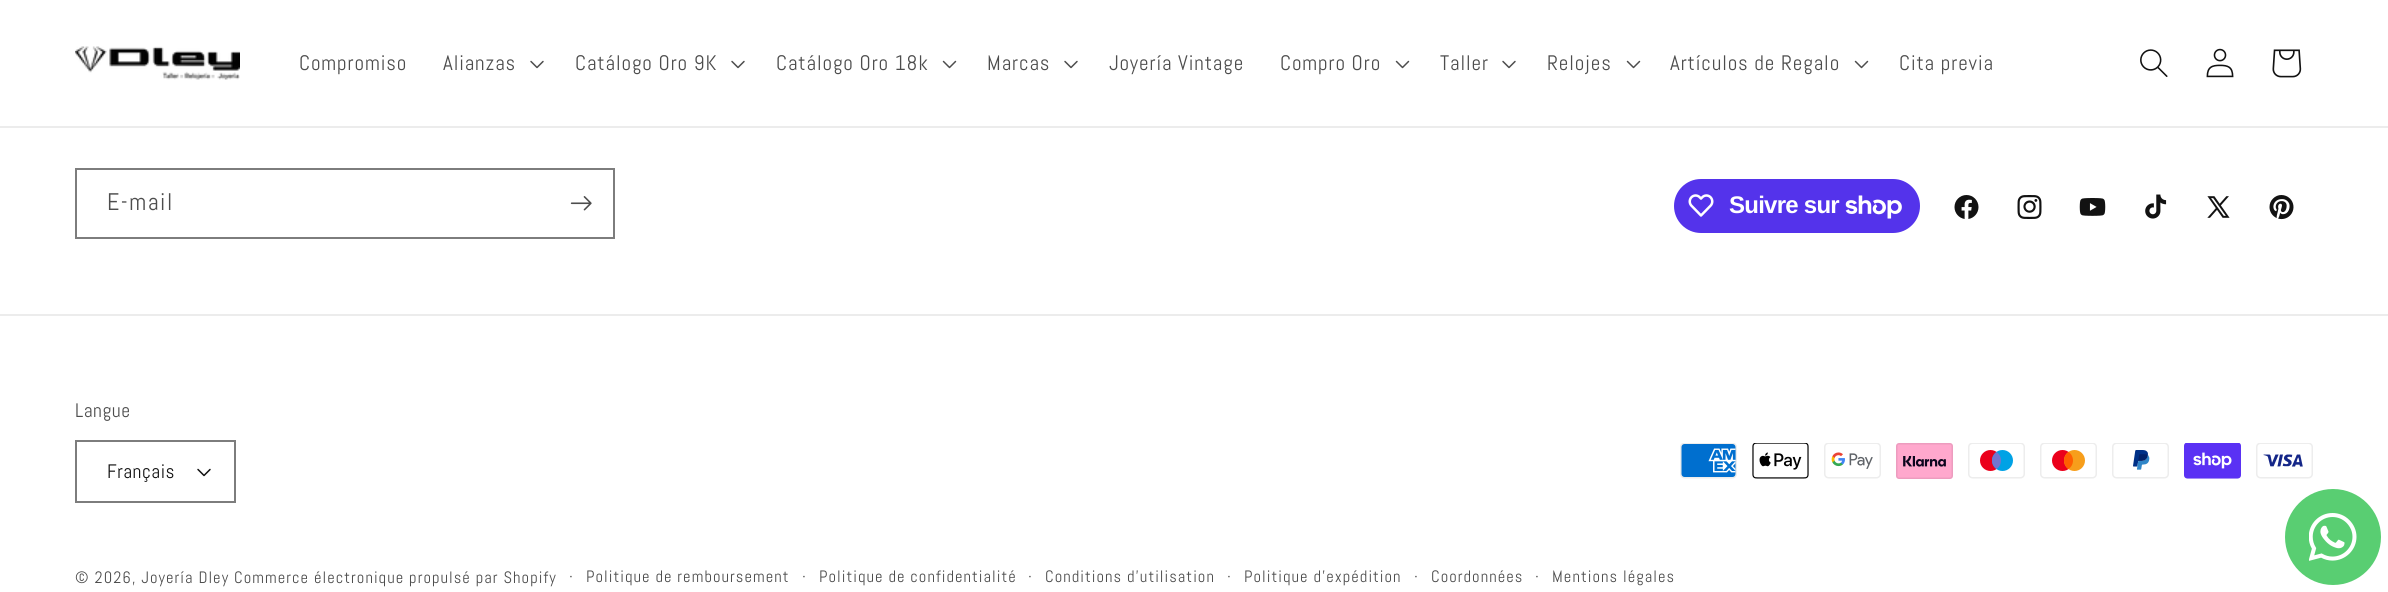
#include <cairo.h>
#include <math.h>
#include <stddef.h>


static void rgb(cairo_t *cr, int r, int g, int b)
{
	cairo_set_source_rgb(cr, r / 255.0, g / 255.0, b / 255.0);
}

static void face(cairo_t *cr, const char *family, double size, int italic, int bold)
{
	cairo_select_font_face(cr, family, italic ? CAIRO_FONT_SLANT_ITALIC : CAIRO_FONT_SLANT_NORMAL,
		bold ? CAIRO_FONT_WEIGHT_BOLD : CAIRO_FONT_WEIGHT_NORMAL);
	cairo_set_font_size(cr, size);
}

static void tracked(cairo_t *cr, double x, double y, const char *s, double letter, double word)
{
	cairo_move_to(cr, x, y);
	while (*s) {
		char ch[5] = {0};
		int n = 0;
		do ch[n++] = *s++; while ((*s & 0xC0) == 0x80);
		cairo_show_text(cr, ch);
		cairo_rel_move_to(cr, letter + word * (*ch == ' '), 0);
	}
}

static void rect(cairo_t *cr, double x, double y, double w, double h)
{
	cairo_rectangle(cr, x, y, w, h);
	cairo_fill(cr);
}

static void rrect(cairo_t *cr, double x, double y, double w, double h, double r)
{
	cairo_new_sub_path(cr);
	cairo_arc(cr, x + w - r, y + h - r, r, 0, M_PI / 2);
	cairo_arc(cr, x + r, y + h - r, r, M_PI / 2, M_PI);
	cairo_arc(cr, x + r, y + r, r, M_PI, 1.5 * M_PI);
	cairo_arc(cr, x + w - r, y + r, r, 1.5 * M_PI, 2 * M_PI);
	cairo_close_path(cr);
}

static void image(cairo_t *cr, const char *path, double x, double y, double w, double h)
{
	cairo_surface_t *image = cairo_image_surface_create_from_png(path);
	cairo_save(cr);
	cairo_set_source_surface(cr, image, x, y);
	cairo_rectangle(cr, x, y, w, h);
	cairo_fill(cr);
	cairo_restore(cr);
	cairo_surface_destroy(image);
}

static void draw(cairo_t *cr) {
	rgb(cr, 255, 255, 255);
	cairo_paint(cr);
	rgb(cr, 236, 236, 236);
	rect(cr, 0, 126, 2388, 2);
	image(cr, "image0.png", 75, 46, 165, 34);
	face(cr, "Abel", 21, 0, 0);
	rgb(cr, 77, 77, 77);
	tracked(cr, 299, 70, "Compromiso", 0.9, 0);
	tracked(cr, 443, 70, "Alianzas", 0.9, 0);
	image(cr, "image1.png", 530, 60, 14, 9);
	tracked(cr, 575, 70, "Catálogo Oro 9K", 0.9, 0);
	image(cr, "image1.png", 731, 60, 14, 9);
	tracked(cr, 776, 70, "Catálogo Oro 18k", 0.9, 0);
	image(cr, "image2.png", 942, 60, 15, 9);
	tracked(cr, 987, 70, "Marcas", 0.9, 0);
	image(cr, "image1.png", 1064, 60, 14, 9);
	tracked(cr, 1109, 70, "Joyería Vintage", 0.9, 0);
	tracked(cr, 1280, 70, "Compro Oro", 0.9, 0);
	image(cr, "image2.png", 1395, 60, 15, 9);
	tracked(cr, 1440, 70, "Taller", 0.9, 0);
	image(cr, "image1.png", 1502, 60, 14, 9);
	tracked(cr, 1547, 70, "Relojes", 0.9, 0);
	image(cr, "image2.png", 1626, 60, 15, 9);
	tracked(cr, 1670, 70, "Artículos de Regalo", 0.9, 0);
	image(cr, "image2.png", 1854, 60, 15, 9);
	tracked(cr, 1899, 70, "Cita previa", 0.9, 0);
	image(cr, "image3.png", 2140, 49, 28, 28);
	image(cr, "image4.png", 2206, 48, 28, 30);
	image(cr, "image5.png", 2272, 49, 30, 29);
	cairo_rectangle(cr, 76, 169, 538, 69);
	rgb(cr, 125, 125, 125);
	cairo_stroke(cr);
	face(cr, "Abel", 24, 0, 0);
	rgb(cr, 77, 77, 77);
	tracked(cr, 107, 210, "E-mail", 1.5, 0);
	image(cr, "image6.png", 570, 196, 22, 15);
	rgb(cr, 84, 51, 235);
	rrect(cr, 1674, 179, 246, 54, 27);
	cairo_fill(cr);
	image(cr, "image7.png", 1688, 194, 26, 23);
	face(cr, "Liberation Sans", 24, 0, 1);
	rgb(cr, 255, 255, 255);
	tracked(cr, 1729, 213, "Suivre sur", -0.75, 0);
	image(cr, "image8.png", 1845, 195, 57, 24);
	image(cr, "image9.png", 1954, 195, 25, 24);
	image(cr, "image10.png", 2017, 195, 25, 24);
	image(cr, "image11.png", 2079, 198, 27, 18);
	image(cr, "image12.png", 2145, 194, 22, 25);
	image(cr, "image13.png", 2207, 196, 23, 22);
	image(cr, "image14.png", 2269, 195, 25, 25);
	rgb(cr, 236, 236, 236);
	rect(cr, 0, 314, 2388, 2);
	face(cr, "Abel", 19.5, 0, 0);
	rgb(cr, 77, 77, 77);
	tracked(cr, 75, 417, "Langue", 0.5, 0);
	image(cr, "image15.png", 197, 468, 14, 9);
	cairo_rectangle(cr, 76, 441, 159, 61);
	rgb(cr, 125, 125, 125);
	cairo_stroke(cr);
	rgb(cr, 18, 18, 18);
	tracked(cr, 107, 478, "Français", 0.5, 0);
	image(cr, "image16.png", 1680, 443, 57, 36);
	image(cr, "image17.png", 1752, 443, 57, 36);
	image(cr, "image18.png", 1824, 443, 57, 36);
	image(cr, "image19.png", 1896, 443, 57, 36);
	image(cr, "image20.png", 1968, 443, 57, 36);
	image(cr, "image21.png", 2040, 443, 57, 36);
	image(cr, "image22.png", 2112, 443, 57, 36);
	image(cr, "image23.png", 2184, 443, 57, 36);
	image(cr, "image24.png", 2256, 443, 57, 36);
	face(cr, "Abel", 16.5, 0, 0);
	rgb(cr, 77, 77, 77);
	tracked(cr, 75, 583, "© 2026, Joyería Dley", 1.05, 0);
	tracked(cr, 234, 583, "Commerce électronique propulsé par Shopify", 1.05, 0);
	face(cr, "Abel", 18, 0, 0);
	tracked(cr, 569, 583, "·", 1.05, 0);
	face(cr, "Abel", 16.5, 0, 0);
	tracked(cr, 586, 582, "Politique de remboursement", 1.05, 0);
	face(cr, "Abel", 18, 0, 0);
	tracked(cr, 802, 583, "·", 1.05, 0);
	face(cr, "Abel", 16.5, 0, 0);
	tracked(cr, 819, 582, "Politique de confidentialité", 1.05, 0);
	face(cr, "Abel", 18, 0, 0);
	tracked(cr, 1028, 583, "·", 1.05, 0);
	face(cr, "Abel", 16.5, 0, 0);
	tracked(cr, 1045, 582, "Conditions d’utilisation", 1.05, 0);
	face(cr, "Abel", 18, 0, 0);
	tracked(cr, 1227, 583, "·", 1.05, 0);
	face(cr, "Abel", 16.5, 0, 0);
	tracked(cr, 1244, 582, "Politique d’expédition", 1.05, 0);
	face(cr, "Abel", 18, 0, 0);
	tracked(cr, 1414, 583, "·", 1.05, 0);
	face(cr, "Abel", 16.5, 0, 0);
	tracked(cr, 1431, 582, "Coordonnées", 1.05, 0);
	face(cr, "Abel", 18, 0, 0);
	tracked(cr, 1535, 583, "·", 1.05, 0);
	face(cr, "Abel", 16.5, 0, 0);
	tracked(cr, 1552, 582, "Mentions légales", 1.05, 0);
	rgb(cr, 89, 206, 114);
	cairo_new_path(cr);
	cairo_arc(cr, 2333, 537, 48, 0, 2 * M_PI);
	cairo_fill(cr);
	image(cr, "image25.png", 2309, 513, 48, 48);
}

int main(void) {
	cairo_surface_t *surface = cairo_image_surface_create(CAIRO_FORMAT_RGB24, 2388, 592);
	cairo_t *cr = cairo_create(surface);
	cairo_font_options_t *options = cairo_font_options_create();
	cairo_font_options_set_hint_metrics(options, CAIRO_HINT_METRICS_OFF);
	cairo_font_options_set_hint_style(options, CAIRO_HINT_STYLE_NONE);
	cairo_set_font_options(cr, options);
	cairo_set_miter_limit(cr, 4);
	draw(cr);
	cairo_surface_write_to_png(surface, "render.png");
	cairo_font_options_destroy(options);
	cairo_destroy(cr);
	cairo_surface_destroy(surface);
	return 0;
}
